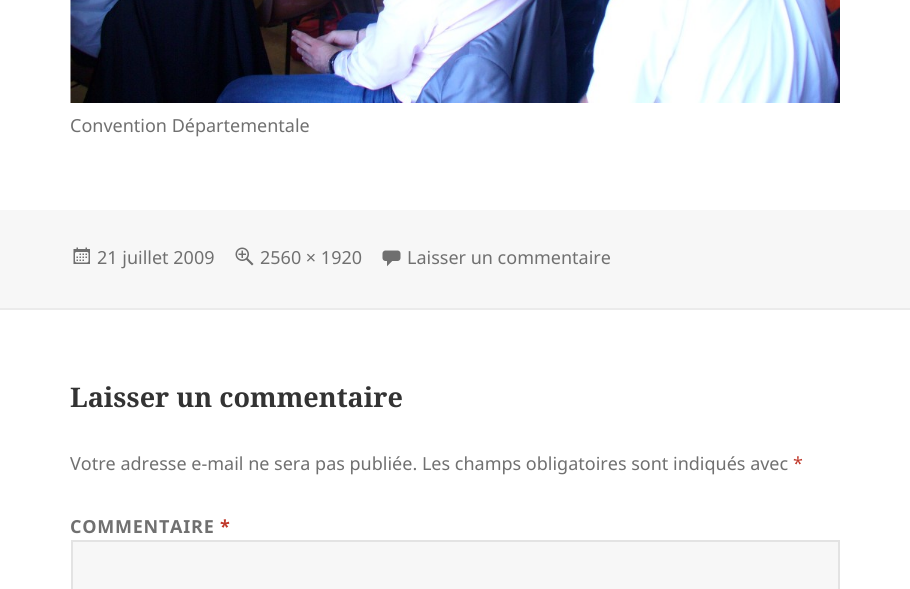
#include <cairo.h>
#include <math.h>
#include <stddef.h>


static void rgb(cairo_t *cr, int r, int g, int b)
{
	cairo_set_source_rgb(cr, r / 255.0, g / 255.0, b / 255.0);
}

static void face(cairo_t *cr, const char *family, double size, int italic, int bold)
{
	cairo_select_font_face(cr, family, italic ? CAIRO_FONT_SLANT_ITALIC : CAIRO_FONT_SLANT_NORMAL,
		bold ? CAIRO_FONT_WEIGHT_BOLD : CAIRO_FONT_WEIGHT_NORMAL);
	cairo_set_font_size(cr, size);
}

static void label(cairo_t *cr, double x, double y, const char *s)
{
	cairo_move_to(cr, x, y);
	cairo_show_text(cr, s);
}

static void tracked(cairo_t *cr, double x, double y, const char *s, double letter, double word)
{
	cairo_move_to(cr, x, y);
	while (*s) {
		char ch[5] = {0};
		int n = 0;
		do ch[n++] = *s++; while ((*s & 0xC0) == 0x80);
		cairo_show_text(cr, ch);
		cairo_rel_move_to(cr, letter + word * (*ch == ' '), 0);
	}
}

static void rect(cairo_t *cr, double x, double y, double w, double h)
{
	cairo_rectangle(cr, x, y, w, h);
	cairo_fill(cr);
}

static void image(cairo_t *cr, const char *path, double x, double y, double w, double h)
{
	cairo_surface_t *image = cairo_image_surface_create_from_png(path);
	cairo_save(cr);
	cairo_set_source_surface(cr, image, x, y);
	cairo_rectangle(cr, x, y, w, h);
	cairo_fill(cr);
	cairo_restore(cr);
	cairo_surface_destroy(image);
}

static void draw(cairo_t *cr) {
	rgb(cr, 255, 255, 255);
	cairo_paint(cr);
	image(cr, "image0.png", 70, 0, 770, 103);
	face(cr, "Noto Sans", 18, 0, 0);
	rgb(cr, 112, 112, 112);
	label(cr, 70, 132, "Convention Départementale");
	rgb(cr, 247, 247, 247);
	rect(cr, 0, 210, 910, 98);
	image(cr, "image1.png", 73, 247, 17, 17);
	rgb(cr, 112, 112, 112);
	label(cr, 97, 264, "21 juillet 2009");
	image(cr, "image2.png", 235, 247, 19, 19);
	label(cr, 260, 264, "2560 × 1920");
	image(cr, "image3.png", 382, 250, 19, 17);
	label(cr, 407, 264, "Laisser un commentaire");
	rgb(cr, 235, 235, 235);
	rect(cr, 0, 308, 910, 2);
	face(cr, "Noto Serif", 27, 0, 1);
	rgb(cr, 51, 51, 51);
	label(cr, 70, 407, "Laisser un commentaire");
	face(cr, "Noto Sans", 18, 0, 0);
	rgb(cr, 112, 112, 112);
	label(cr, 70, 470, "Votre adresse e-mail ne sera pas publiée. Les champs obligatoires sont indiqués avec");
	rgb(cr, 192, 57, 43);
	label(cr, 793, 470, "*");
	face(cr, "Noto Sans", 18, 0, 1);
	rgb(cr, 112, 112, 112);
	tracked(cr, 70, 533, "COMMENTAIRE", 0.75, 0);
	rgb(cr, 192, 57, 43);
	tracked(cr, 220, 533, "*", 0.75, 0);
	rgb(cr, 247, 247, 247);
	cairo_rectangle(cr, 72, 541, 767, 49);
	cairo_fill_preserve(cr);
	rgb(cr, 227, 227, 227);
	cairo_stroke(cr);
}

int main(void) {
	cairo_surface_t *surface = cairo_image_surface_create(CAIRO_FORMAT_RGB24, 910, 589);
	cairo_t *cr = cairo_create(surface);
	cairo_font_options_t *options = cairo_font_options_create();
	cairo_font_options_set_hint_metrics(options, CAIRO_HINT_METRICS_OFF);
	cairo_font_options_set_hint_style(options, CAIRO_HINT_STYLE_NONE);
	cairo_set_font_options(cr, options);
	cairo_set_miter_limit(cr, 4);
	draw(cr);
	cairo_surface_write_to_png(surface, "render.png");
	cairo_font_options_destroy(options);
	cairo_destroy(cr);
	cairo_surface_destroy(surface);
	return 0;
}
